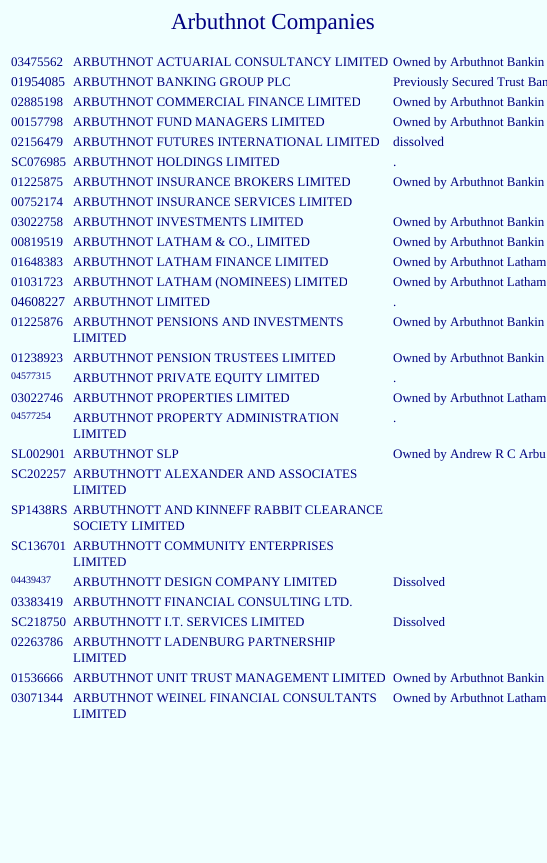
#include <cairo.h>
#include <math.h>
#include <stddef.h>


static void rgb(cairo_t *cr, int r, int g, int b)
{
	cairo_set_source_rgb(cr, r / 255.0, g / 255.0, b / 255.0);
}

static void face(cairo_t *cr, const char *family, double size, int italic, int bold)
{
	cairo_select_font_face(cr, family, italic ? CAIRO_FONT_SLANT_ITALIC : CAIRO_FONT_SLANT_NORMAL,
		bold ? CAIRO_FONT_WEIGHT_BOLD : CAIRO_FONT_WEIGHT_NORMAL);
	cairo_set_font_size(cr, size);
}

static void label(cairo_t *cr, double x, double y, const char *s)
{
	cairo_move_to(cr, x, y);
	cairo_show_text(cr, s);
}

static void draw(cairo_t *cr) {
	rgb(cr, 240, 255, 255);
	cairo_paint(cr);
	face(cr, "Liberation Serif", 23, 0, 0);
	rgb(cr, 0, 0, 128);
	label(cr, 171, 29, "Arbuthnot Companies");
	face(cr, "Liberation Serif", 13, 0, 0);
	label(cr, 11, 66, "03475562");
	label(cr, 73, 66, "ARBUTHNOT ACTUARIAL CONSULTANCY LIMITED");
	label(cr, 393, 66, "Owned by Arbuthnot Bankin");
	face(cr, "Liberation Serif", 13.5, 0, 0);
	label(cr, 11, 86, "01954085");
	face(cr, "Liberation Serif", 13, 0, 0);
	label(cr, 73, 86, "ARBUTHNOT BANKING GROUP PLC");
	label(cr, 393, 86, "Previously Secured Trust Ban");
	label(cr, 11, 106, "02885198");
	label(cr, 73, 106, "ARBUTHNOT COMMERCIAL FINANCE LIMITED");
	label(cr, 393, 106, "Owned by Arbuthnot Bankin");
	label(cr, 11, 126, "00157798");
	label(cr, 73, 126, "ARBUTHNOT FUND MANAGERS LIMITED");
	label(cr, 393, 126, "Owned by Arbuthnot Bankin");
	label(cr, 11, 146, "02156479");
	label(cr, 73, 146, "ARBUTHNOT FUTURES INTERNATIONAL LIMITED");
	face(cr, "Liberation Serif", 13.5, 0, 0);
	label(cr, 393, 146, "dissolved");
	face(cr, "Liberation Serif", 13, 0, 0);
	label(cr, 11, 166, "SC076985");
	label(cr, 73, 166, "ARBUTHNOT HOLDINGS LIMITED");
	face(cr, "Liberation Serif", 13.5, 0, 0);
	label(cr, 393, 166, ".");
	face(cr, "Liberation Serif", 13, 0, 0);
	label(cr, 11, 186, "01225875");
	label(cr, 73, 186, "ARBUTHNOT INSURANCE BROKERS LIMITED");
	label(cr, 393, 186, "Owned by Arbuthnot Bankin");
	label(cr, 11, 206, "00752174");
	label(cr, 73, 206, "ARBUTHNOT INSURANCE SERVICES LIMITED");
	label(cr, 11, 226, "03022758");
	label(cr, 73, 226, "ARBUTHNOT INVESTMENTS LIMITED");
	label(cr, 393, 226, "Owned by Arbuthnot Bankin");
	label(cr, 11, 246, "00819519");
	label(cr, 73, 246, "ARBUTHNOT LATHAM & CO., LIMITED");
	label(cr, 393, 246, "Owned by Arbuthnot Bankin");
	label(cr, 11, 266, "01648383");
	label(cr, 73, 266, "ARBUTHNOT LATHAM FINANCE LIMITED");
	label(cr, 393, 266, "Owned by Arbuthnot Latham");
	label(cr, 11, 286, "01031723");
	label(cr, 73, 286, "ARBUTHNOT LATHAM (NOMINEES) LIMITED");
	label(cr, 393, 286, "Owned by Arbuthnot Latham");
	face(cr, "Liberation Serif", 13.5, 0, 0);
	label(cr, 11, 306, "04608227");
	face(cr, "Liberation Serif", 13, 0, 0);
	label(cr, 73, 306, "ARBUTHNOT LIMITED");
	label(cr, 393, 306, ".");
	label(cr, 11, 326, "01225876");
	label(cr, 73, 326, "ARBUTHNOT PENSIONS AND INVESTMENTS");
	label(cr, 73, 342, "LIMITED");
	label(cr, 393, 326, "Owned by Arbuthnot Bankin");
	label(cr, 11, 362, "01238923");
	label(cr, 73, 362, "ARBUTHNOT PENSION TRUSTEES LIMITED");
	label(cr, 393, 362, "Owned by Arbuthnot Bankin");
	face(cr, "Liberation Serif", 10, 0, 0);
	label(cr, 11, 379, "04577315");
	face(cr, "Liberation Serif", 13, 0, 0);
	label(cr, 73, 382, "ARBUTHNOT PRIVATE EQUITY LIMITED");
	label(cr, 393, 382, ".");
	label(cr, 11, 402, "03022746");
	label(cr, 73, 402, "ARBUTHNOT PROPERTIES LIMITED");
	label(cr, 393, 402, "Owned by Arbuthnot Latham");
	face(cr, "Liberation Serif", 10, 0, 0);
	label(cr, 11, 419, "04577254");
	face(cr, "Liberation Serif", 13, 0, 0);
	label(cr, 73, 422, "ARBUTHNOT PROPERTY ADMINISTRATION");
	label(cr, 73, 438, "LIMITED");
	label(cr, 393, 422, ".");
	label(cr, 11, 458, "SL002901");
	label(cr, 73, 458, "ARBUTHNOT SLP");
	label(cr, 393, 458, "Owned by Andrew R C Arbu");
	label(cr, 11, 478, "SC202257");
	label(cr, 73, 478, "ARBUTHNOTT ALEXANDER AND ASSOCIATES");
	label(cr, 73, 494, "LIMITED");
	label(cr, 11, 514, "SP1438RS");
	label(cr, 73, 514, "ARBUTHNOTT AND KINNEFF RABBIT CLEARANCE");
	label(cr, 73, 530, "SOCIETY LIMITED");
	label(cr, 11, 550, "SC136701");
	label(cr, 73, 550, "ARBUTHNOTT COMMUNITY ENTERPRISES");
	label(cr, 73, 566, "LIMITED");
	face(cr, "Liberation Serif", 10, 0, 0);
	label(cr, 11, 583, "04439437");
	face(cr, "Liberation Serif", 13, 0, 0);
	label(cr, 73, 586, "ARBUTHNOTT DESIGN COMPANY LIMITED");
	label(cr, 393, 586, "Dissolved");
	label(cr, 11, 606, "03383419");
	label(cr, 73, 606, "ARBUTHNOTT FINANCIAL CONSULTING LTD.");
	label(cr, 11, 626, "SC218750");
	label(cr, 73, 626, "ARBUTHNOTT I.T. SERVICES LIMITED");
	label(cr, 393, 626, "Dissolved");
	label(cr, 11, 646, "02263786");
	label(cr, 73, 646, "ARBUTHNOTT LADENBURG PARTNERSHIP");
	label(cr, 73, 662, "LIMITED");
	label(cr, 11, 682, "01536666");
	label(cr, 73, 682, "ARBUTHNOT UNIT TRUST MANAGEMENT LIMITED");
	label(cr, 393, 682, "Owned by Arbuthnot Bankin");
	label(cr, 11, 702, "03071344");
	label(cr, 73, 702, "ARBUTHNOT WEINEL FINANCIAL CONSULTANTS");
	label(cr, 73, 718, "LIMITED");
	label(cr, 393, 702, "Owned by Arbuthnot Latham");
}

int main(void) {
	cairo_surface_t *surface = cairo_image_surface_create(CAIRO_FORMAT_RGB24, 547, 863);
	cairo_t *cr = cairo_create(surface);
	cairo_font_options_t *options = cairo_font_options_create();
	cairo_font_options_set_hint_metrics(options, CAIRO_HINT_METRICS_OFF);
	cairo_font_options_set_hint_style(options, CAIRO_HINT_STYLE_NONE);
	cairo_set_font_options(cr, options);
	cairo_set_miter_limit(cr, 4);
	draw(cr);
	cairo_surface_write_to_png(surface, "render.png");
	cairo_font_options_destroy(options);
	cairo_destroy(cr);
	cairo_surface_destroy(surface);
	return 0;
}
